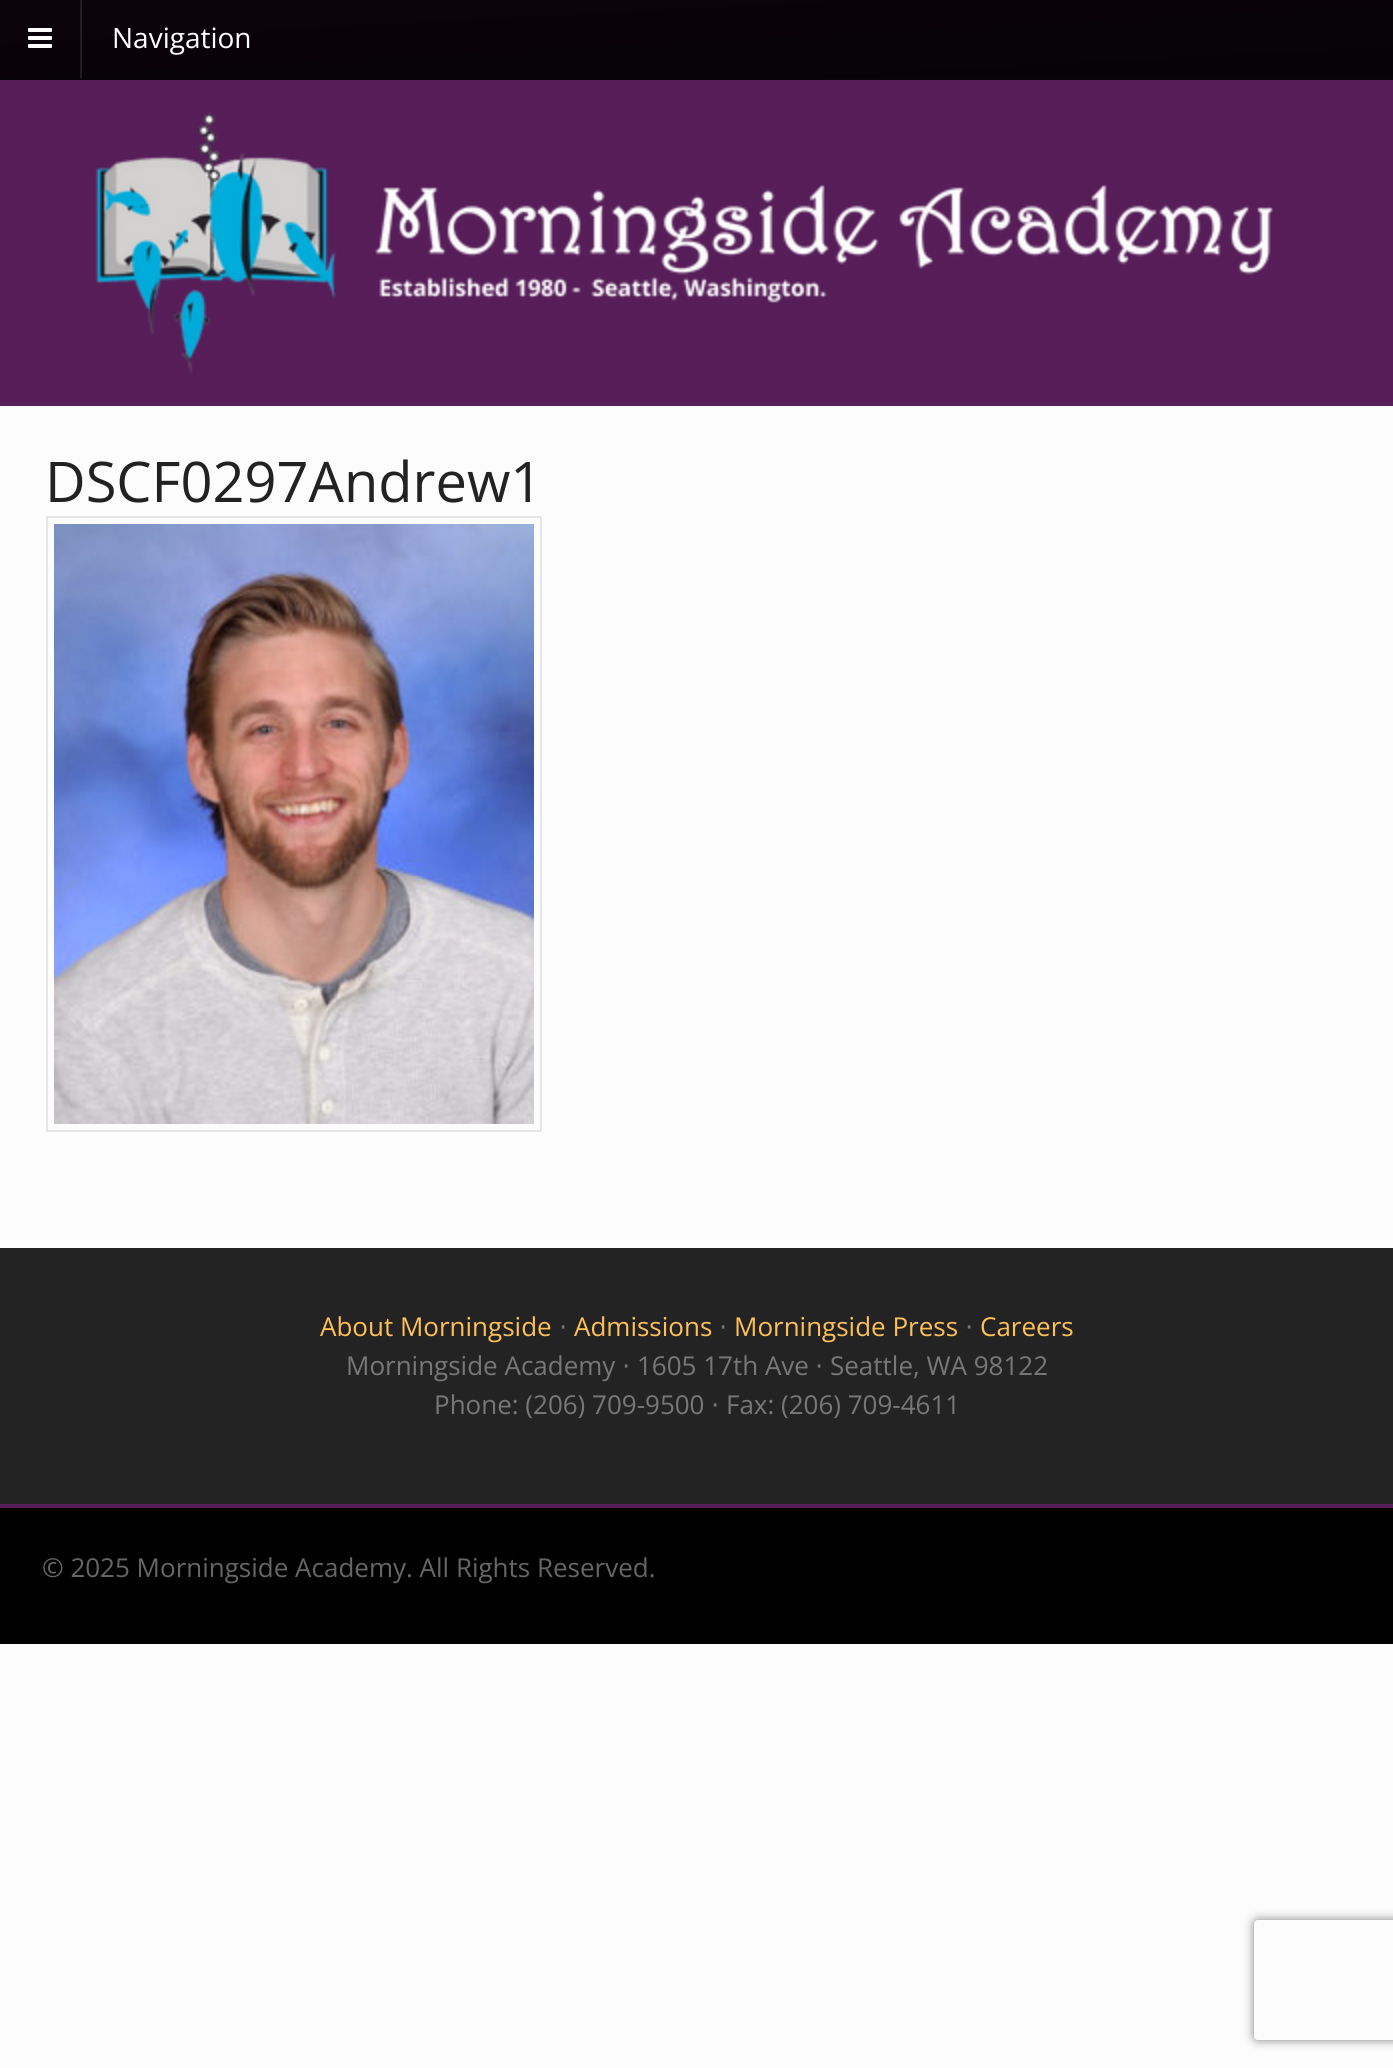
#include <cairo.h>
#include <math.h>
#include <stddef.h>


static void rgb(cairo_t *cr, int r, int g, int b)
{
	cairo_set_source_rgb(cr, r / 255.0, g / 255.0, b / 255.0);
}

static void face(cairo_t *cr, const char *family, double size, int italic, int bold)
{
	cairo_select_font_face(cr, family, italic ? CAIRO_FONT_SLANT_ITALIC : CAIRO_FONT_SLANT_NORMAL,
		bold ? CAIRO_FONT_WEIGHT_BOLD : CAIRO_FONT_WEIGHT_NORMAL);
	cairo_set_font_size(cr, size);
}

static void label(cairo_t *cr, double x, double y, const char *s)
{
	cairo_move_to(cr, x, y);
	cairo_show_text(cr, s);
}

static void rect(cairo_t *cr, double x, double y, double w, double h)
{
	cairo_rectangle(cr, x, y, w, h);
	cairo_fill(cr);
}

static void rrect(cairo_t *cr, double x, double y, double w, double h, double r)
{
	cairo_new_sub_path(cr);
	cairo_arc(cr, x + w - r, y + h - r, r, 0, M_PI / 2);
	cairo_arc(cr, x + r, y + h - r, r, M_PI / 2, M_PI);
	cairo_arc(cr, x + r, y + r, r, M_PI, 1.5 * M_PI);
	cairo_arc(cr, x + w - r, y + r, r, 1.5 * M_PI, 2 * M_PI);
	cairo_close_path(cr);
}

static void soft_shadow(cairo_t *cr, double x, double y, double w, double h, double r, double blur, double alpha)
{
	cairo_push_group_with_content(cr, CAIRO_CONTENT_ALPHA);
	cairo_set_operator(cr, CAIRO_OPERATOR_SOURCE);
	for (int i = 15; i >= -15 && fmin(w, h) + blur * i / 3 > 0; i -= 2) {
		double e = blur * i / 6;
		cairo_set_source_rgba(cr, 0, 0, 0, alpha * erfc((i - 1) / 8.5) / 2);
		rrect(cr, x - e, y - e, w + 2 * e, h + 2 * e, fmax(0, fmin(r + e + blur * .6, fmin(w, h) / 2 + e)));
		cairo_fill(cr);
	}
	cairo_pattern_t *soft = cairo_pop_group(cr);
	cairo_mask(cr, soft);
	cairo_pattern_destroy(soft);
}

static void image(cairo_t *cr, const char *path, double x, double y, double w, double h)
{
	cairo_surface_t *image = cairo_image_surface_create_from_png(path);
	cairo_save(cr);
	cairo_set_source_surface(cr, image, x, y);
	cairo_rectangle(cr, x, y, w, h);
	cairo_fill(cr);
	cairo_restore(cr);
	cairo_surface_destroy(image);
}

static void draw(cairo_t *cr) {
	cairo_pattern_t *gradient;
	rgb(cr, 252, 252, 252);
	cairo_paint(cr);
	rgb(cr, 86, 29, 88);
	rect(cr, 0, 80, 1393, 326);
	gradient = cairo_pattern_create_linear(693, -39, 701, 117);
	cairo_pattern_add_color_stop_rgba(gradient, 0, 0.043, 0.016, 0.043, 1);
	cairo_pattern_add_color_stop_rgba(gradient, 1, 0.024, 0.008, 0.024, 1);
	cairo_set_source(cr, gradient);
	cairo_pattern_destroy(gradient);
	rect(cr, 0, 0, 1393, 78);
	gradient = cairo_pattern_create_linear(693, -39, 701, 117);
	cairo_pattern_add_color_stop_rgba(gradient, 0, 0.137, 0.114, 0.137, 1);
	cairo_pattern_add_color_stop_rgba(gradient, 1, 0.122, 0.106, 0.122, 1);
	cairo_set_source(cr, gradient);
	cairo_pattern_destroy(gradient);
	rect(cr, 80, 0, 2, 78);
	rgb(cr, 8, 3, 8);
	rect(cr, 0, 78, 1393, 2);
	image(cr, "image0.png", 28, 28, 24, 20);
	face(cr, "Open Sans", 28, 0, 0);
	rgb(cr, 255, 255, 255);
	label(cr, 112, 48, "Navigation");
	image(cr, "image1.png", 95, 112, 1178, 262);
	face(cr, "Open Sans", 56, 0, 0);
	rgb(cr, 34, 34, 34);
	label(cr, 45, 502, "DSCF0297Andrew1");
	cairo_rectangle(cr, 47, 517, 494, 614);
	rgb(cr, 230, 230, 230);
	cairo_stroke(cr);
	image(cr, "image2.png", 54, 524, 480, 600);
	rgb(cr, 35, 35, 35);
	rect(cr, 0, 1248, 1393, 256);
	face(cr, "Open Sans", 26, 0, 0);
	rgb(cr, 254, 192, 87);
	label(cr, 320, 1336, "About Morningside");
	face(cr, "DejaVu Sans", 26, 0, 0);
	rgb(cr, 119, 119, 119);
	label(cr, 559, 1336, "⋅");
	face(cr, "Open Sans", 26, 0, 0);
	rgb(cr, 254, 192, 87);
	label(cr, 574, 1336, "Admissions");
	face(cr, "DejaVu Sans", 26, 0, 0);
	rgb(cr, 119, 119, 119);
	label(cr, 719, 1336, "⋅");
	face(cr, "Open Sans", 26, 0, 0);
	rgb(cr, 254, 192, 87);
	label(cr, 734, 1336, "Morningside Press");
	face(cr, "DejaVu Sans", 26, 0, 0);
	rgb(cr, 119, 119, 119);
	label(cr, 965, 1336, "⋅");
	face(cr, "Open Sans", 26, 0, 0);
	rgb(cr, 254, 192, 87);
	label(cr, 980, 1336, "Careers");
	rgb(cr, 119, 119, 119);
	label(cr, 346, 1375, "Morningside Academy");
	face(cr, "DejaVu Sans", 26, 0, 0);
	label(cr, 622, 1375, "⋅");
	face(cr, "Open Sans", 26, 0, 0);
	label(cr, 637, 1375, "1605 17th Ave");
	face(cr, "DejaVu Sans", 26, 0, 0);
	label(cr, 815, 1375, "⋅");
	face(cr, "Open Sans", 26, 0, 0);
	label(cr, 830, 1375, "Seattle, WA 98122");
	label(cr, 434, 1414, "Phone: (206) 709-9500");
	face(cr, "DejaVu Sans", 26, 0, 0);
	label(cr, 711, 1414, "⋅");
	face(cr, "Open Sans", 26, 0, 0);
	label(cr, 726, 1414, "Fax: (206) 709-4611");
	rgb(cr, 0, 0, 0);
	rect(cr, 0, 1508, 1393, 136);
	rgb(cr, 86, 29, 88);
	rect(cr, 0, 1504, 1393, 4);
	rgb(cr, 102, 102, 102);
	label(cr, 42, 1577, "© 2025 Morningside Academy. All Rights Reserved.");
	cairo_save(cr);
	cairo_set_fill_rule(cr, CAIRO_FILL_RULE_EVEN_ODD);
	cairo_new_path(cr);
	cairo_move_to(cr, 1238, 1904);
	cairo_line_to(cr, 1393, 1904);
	cairo_line_to(cr, 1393, 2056);
	cairo_line_to(cr, 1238, 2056);
	cairo_close_path(cr);
	cairo_move_to(cr, 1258, 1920);
	cairo_line_to(cr, 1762, 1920);
	cairo_curve_to(cr, 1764, 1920, 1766, 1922, 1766, 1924);
	cairo_line_to(cr, 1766, 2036);
	cairo_curve_to(cr, 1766, 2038, 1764, 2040, 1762, 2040);
	cairo_line_to(cr, 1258, 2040);
	cairo_curve_to(cr, 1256, 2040, 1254, 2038, 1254, 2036);
	cairo_line_to(cr, 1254, 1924);
	cairo_curve_to(cr, 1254, 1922, 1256, 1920, 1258, 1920);
	cairo_close_path(cr);
	cairo_clip(cr);
	rgb(cr, 128, 128, 128);
	soft_shadow(cr, 1254, 1920, 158, 120, 4, 5, 1);
	cairo_restore(cr);
}

int main(void) {
	cairo_surface_t *surface = cairo_image_surface_create(CAIRO_FORMAT_RGB24, 1393, 2068);
	cairo_t *cr = cairo_create(surface);
	cairo_font_options_t *options = cairo_font_options_create();
	cairo_font_options_set_hint_metrics(options, CAIRO_HINT_METRICS_OFF);
	cairo_font_options_set_hint_style(options, CAIRO_HINT_STYLE_NONE);
	cairo_set_font_options(cr, options);
	cairo_set_miter_limit(cr, 4);
	draw(cr);
	cairo_surface_write_to_png(surface, "render.png");
	cairo_font_options_destroy(options);
	cairo_destroy(cr);
	cairo_surface_destroy(surface);
	return 0;
}
